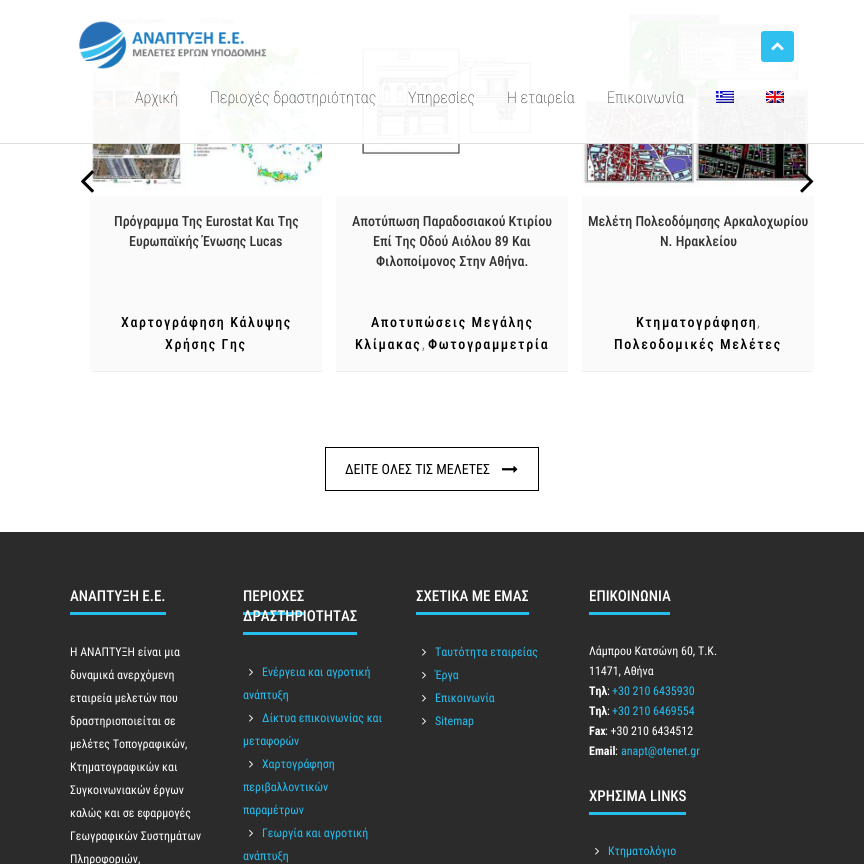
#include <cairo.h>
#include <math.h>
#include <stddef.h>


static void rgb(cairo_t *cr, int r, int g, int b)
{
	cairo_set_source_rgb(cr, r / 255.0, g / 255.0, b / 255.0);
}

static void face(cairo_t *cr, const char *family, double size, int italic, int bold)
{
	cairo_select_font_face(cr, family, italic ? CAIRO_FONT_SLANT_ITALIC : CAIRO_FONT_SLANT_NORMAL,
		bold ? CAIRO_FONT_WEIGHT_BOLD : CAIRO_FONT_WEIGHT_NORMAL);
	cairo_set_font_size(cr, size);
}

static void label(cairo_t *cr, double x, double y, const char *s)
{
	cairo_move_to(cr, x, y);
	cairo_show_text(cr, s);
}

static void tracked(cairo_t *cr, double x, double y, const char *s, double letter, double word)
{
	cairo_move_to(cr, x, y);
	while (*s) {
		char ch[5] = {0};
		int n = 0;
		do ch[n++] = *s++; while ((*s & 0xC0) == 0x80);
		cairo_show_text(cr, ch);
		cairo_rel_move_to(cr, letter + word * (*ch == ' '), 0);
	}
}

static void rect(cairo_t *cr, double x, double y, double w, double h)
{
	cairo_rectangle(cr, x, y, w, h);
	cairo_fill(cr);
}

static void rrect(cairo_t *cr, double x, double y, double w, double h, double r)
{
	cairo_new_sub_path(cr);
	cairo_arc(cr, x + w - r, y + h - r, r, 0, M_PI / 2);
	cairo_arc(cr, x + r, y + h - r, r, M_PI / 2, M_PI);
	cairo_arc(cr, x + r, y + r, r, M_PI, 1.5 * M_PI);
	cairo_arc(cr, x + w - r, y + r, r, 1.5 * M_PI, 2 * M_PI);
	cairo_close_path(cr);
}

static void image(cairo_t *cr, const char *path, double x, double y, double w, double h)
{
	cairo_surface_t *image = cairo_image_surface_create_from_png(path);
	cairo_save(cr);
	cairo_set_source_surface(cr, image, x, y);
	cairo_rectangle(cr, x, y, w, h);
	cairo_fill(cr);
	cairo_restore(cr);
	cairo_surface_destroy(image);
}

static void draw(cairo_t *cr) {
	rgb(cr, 255, 255, 255);
	cairo_paint(cr);
	image(cr, "image6.png", 90, 17, 232, 173);
	image(cr, "image7.png", 361, 45, 173, 111);
	image(cr, "image8.png", 582, 10, 231, 178);
	cairo_set_source_rgba(cr, 1, 1, 1, 0.95);
	rect(cr, 90, 10, 723, 134);
	cairo_set_source_rgba(cr, 0.867, 0.867, 0.867, 0.95);
	rect(cr, 0, 143, 864, 1);
	image(cr, "image0.png", 79, 21, 188, 48);
	cairo_set_source_rgba(cr, 0.149, 0.741, 0.937, 0.95);
	rrect(cr, 761, 31, 33, 31, 3);
	cairo_fill(cr);
	image(cr, "image1.png", 771, 42, 13, 9);
	face(cr, "Roboto Condensed Thin", 16, 0, 0);
	rgb(cr, 13, 12, 12);
	label(cr, 135, 103, "Αρχική");
	label(cr, 210, 103, "Περιοχές δραστηριότητας");
	label(cr, 408, 103, "Yπηρεσίες");
	label(cr, 507, 103, "Η εταιρεία");
	label(cr, 607, 103, "Επικοινωνία");
	image(cr, "image2.png", 716, 91, 18, 12);
	image(cr, "image3.png", 766, 91, 18, 12);
	image(cr, "image4.png", 81, 170, 13, 23);
	image(cr, "image5.png", 800, 170, 14, 23);
	rgb(cr, 250, 250, 250);
	cairo_new_path(cr);
	cairo_move_to(cr, 90, 196);
	cairo_line_to(cr, 322, 196);
	cairo_line_to(cr, 322, 372);
	cairo_line_to(cr, 94, 372);
	cairo_curve_to(cr, 92, 372, 90, 370, 90, 368);
	cairo_close_path(cr);
	cairo_fill(cr);
	cairo_save(cr);
	rrect(cr, 90, 3, 724, 369, 4);
	cairo_clip(cr);
	rgb(cr, 238, 238, 238);
	rect(cr, 90, 371, 232, 1);
	cairo_restore(cr);
	face(cr, "Roboto Condensed Medium", 14, 0, 0);
	rgb(cr, 51, 51, 51);
	label(cr, 114, 226, "Πρόγραμμα Της Eurostat Και Της");
	label(cr, 129, 246, "Ευρωπαϊκής Ένωσης Lucas");
	rgb(cr, 0, 0, 0);
	tracked(cr, 121, 327, "Χαρτογράφηση Κάλυψης", 1.6, 0);
	tracked(cr, 165, 349, "Χρήσης Γης", 1.6, 0);
	rgb(cr, 250, 250, 250);
	rect(cr, 336, 196, 232, 175);
	rgb(cr, 238, 238, 238);
	rect(cr, 336, 371, 232, 1);
	rgb(cr, 51, 51, 51);
	label(cr, 352, 226, "Αποτύπωση Παραδοσιακού Κτιρίου");
	label(cr, 373, 246, "Επί Της Οδού Αιόλου 89 Και");
	label(cr, 376, 266, "Φιλοποίμονος Στην Αθήνα.");
	rgb(cr, 0, 0, 0);
	tracked(cr, 371, 327, "Αποτυπώσεις Μεγάλης", 1.6, 0);
	tracked(cr, 355, 349, "Κλίμακας", 1.6, 0);
	face(cr, "Roboto Condensed", 14, 0, 0);
	rgb(cr, 136, 136, 136);
	label(cr, 422, 349, ",");
	face(cr, "Roboto Condensed Medium", 14, 0, 0);
	rgb(cr, 0, 0, 0);
	tracked(cr, 428, 349, "Φωτογραμμετρία", 1.6, 0);
	rgb(cr, 250, 250, 250);
	cairo_new_path(cr);
	cairo_move_to(cr, 582, 196);
	cairo_line_to(cr, 814, 196);
	cairo_line_to(cr, 814, 368);
	cairo_curve_to(cr, 814, 370, 812, 372, 810, 372);
	cairo_line_to(cr, 582, 372);
	cairo_close_path(cr);
	cairo_fill(cr);
	cairo_save(cr);
	rrect(cr, 90, 3, 724, 369, 4);
	cairo_clip(cr);
	rgb(cr, 238, 238, 238);
	rect(cr, 582, 371, 232, 1);
	cairo_restore(cr);
	rgb(cr, 51, 51, 51);
	label(cr, 588, 226, "Μελέτη Πολεοδόμησης Αρκαλοχωρίου");
	label(cr, 660, 246, "Ν. Ηρακλείου");
	rgb(cr, 0, 0, 0);
	tracked(cr, 636, 327, "Κτηματογράφηση", 1.6, 0);
	face(cr, "Roboto Condensed", 14, 0, 0);
	rgb(cr, 136, 136, 136);
	label(cr, 757, 327, ",");
	face(cr, "Roboto Condensed Medium", 14, 0, 0);
	rgb(cr, 0, 0, 0);
	tracked(cr, 614, 349, "Πολεοδομικές Μελέτες", 1.6, 0);
	cairo_rectangle(cr, 325.5, 447.5, 213, 43);
	cairo_set_line_width(cr, 1);
	cairo_stroke(cr);
	face(cr, "Roboto Condensed", 14, 0, 0);
	label(cr, 345, 474, "ΔΕΙΤΕ ΟΛΕΣ ΤΙΣ ΜΕΛΕΤΕΣ");
	image(cr, "image9.png", 502, 465, 16, 8);
	rgb(cr, 43, 43, 43);
	rect(cr, 0, 532, 864, 332);
	face(cr, "Roboto Condensed Medium", 15, 0, 0);
	rgb(cr, 255, 255, 255);
	label(cr, 70, 601, "ΑΝΑΠΤΥΞΗ Ε.Ε.");
	rgb(cr, 38, 189, 239);
	rect(cr, 70, 612, 96, 3);
	face(cr, "Roboto Condensed", 12, 0, 0);
	rgb(cr, 255, 255, 255);
	label(cr, 70, 656, "Η ΑΝΑΠΤΥΞΗ είναι μια");
	label(cr, 70, 679, "δυναμικά ανερχόμενη");
	label(cr, 70, 702, "εταιρεία μελετών που");
	label(cr, 70, 725, "δραστηριοποιείται σε");
	label(cr, 70, 748, "μελέτες Τοπογραφικών,");
	label(cr, 70, 771, "Κτηματογραφικών και");
	label(cr, 70, 794, "Συγκοινωνιακών έργων");
	label(cr, 70, 817, "καλώς και σε εφαρμογές");
	label(cr, 70, 840, "Γεωγραφικών Συστημάτων");
	label(cr, 70, 863, "Πληροφοριών,");
	face(cr, "Roboto Condensed Medium", 15, 0, 0);
	label(cr, 243, 601, "ΠΕΡΙΟΧΕΣ");
	rgb(cr, 38, 189, 239);
	rect(cr, 243, 612, 61, 3);
	rgb(cr, 255, 255, 255);
	label(cr, 243, 621, "ΔΡΑΣΤΗΡΙΟΤΗΤΑΣ");
	rgb(cr, 38, 189, 239);
	rect(cr, 243, 632, 114, 3);
	image(cr, "image10.png", 249, 668, 4, 8);
	face(cr, "Roboto Condensed", 12, 0, 0);
	label(cr, 262, 676, "Ενέργεια και αγροτική");
	label(cr, 243, 699, "ανάπτυξη");
	image(cr, "image10.png", 249, 714, 4, 8);
	label(cr, 262, 722, "Δίκτυα επικοινωνίας και");
	label(cr, 243, 745, "μεταφορών");
	image(cr, "image10.png", 249, 760, 4, 8);
	label(cr, 262, 768, "Χαρτογράφηση");
	label(cr, 243, 791, "περιβαλλοντικών");
	label(cr, 243, 814, "παραμέτρων");
	image(cr, "image10.png", 249, 829, 4, 8);
	label(cr, 262, 837, "Γεωργία και αγροτική");
	label(cr, 243, 860, "ανάπτυξη");
	face(cr, "Roboto Condensed Medium", 15, 0, 0);
	rgb(cr, 255, 255, 255);
	label(cr, 416, 601, "ΣΧΕΤΙΚΑ ΜΕ ΕΜΑΣ");
	rgb(cr, 38, 189, 239);
	rect(cr, 416, 612, 113, 3);
	image(cr, "image10.png", 422, 648, 4, 8);
	face(cr, "Roboto Condensed", 12, 0, 0);
	label(cr, 435, 656, "Ταυτότητα εταιρείας");
	image(cr, "image10.png", 422, 671, 4, 8);
	label(cr, 435, 679, "Έργα");
	image(cr, "image10.png", 422, 694, 4, 8);
	label(cr, 435, 702, "Επικοινωνία");
	image(cr, "image10.png", 422, 717, 4, 8);
	label(cr, 435, 725, "Sitemap");
	face(cr, "Roboto Condensed Medium", 15, 0, 0);
	rgb(cr, 255, 255, 255);
	label(cr, 589, 601, "ΕΠΙΚΟΙΝΩΝΙΑ");
	rgb(cr, 38, 189, 239);
	rect(cr, 589, 612, 81, 3);
	face(cr, "Roboto Condensed", 12, 0, 0);
	rgb(cr, 255, 255, 255);
	label(cr, 589, 655, "Λάμπρου Κατσώνη 60, Τ.Κ.");
	label(cr, 589, 675, "11471, Αθήνα");
	face(cr, "Roboto Condensed", 12, 0, 1);
	label(cr, 589, 695, "Τηλ");
	face(cr, "Roboto Condensed", 12, 0, 0);
	label(cr, 607, 695, ":");
	rgb(cr, 38, 189, 239);
	label(cr, 612, 695, "+30 210 6435930");
	face(cr, "Roboto Condensed", 12, 0, 1);
	rgb(cr, 255, 255, 255);
	label(cr, 589, 715, "Τηλ");
	face(cr, "Roboto Condensed", 12, 0, 0);
	label(cr, 607, 715, ":");
	rgb(cr, 38, 189, 239);
	label(cr, 612, 715, "+30 210 6469554");
	face(cr, "Roboto Condensed", 12, 0, 1);
	rgb(cr, 255, 255, 255);
	label(cr, 589, 735, "Fax");
	face(cr, "Roboto Condensed", 12, 0, 0);
	label(cr, 605, 735, ": +30 210 6434512");
	face(cr, "Roboto Condensed", 12, 0, 1);
	label(cr, 589, 755, "Email");
	face(cr, "Roboto Condensed", 12, 0, 0);
	label(cr, 615, 755, ":");
	rgb(cr, 38, 189, 239);
	label(cr, 621, 755, "anapt@otenet.gr");
	face(cr, "Roboto Condensed Medium", 15, 0, 0);
	rgb(cr, 255, 255, 255);
	label(cr, 589, 801, "ΧΡΗΣΙΜΑ LINKS");
	rgb(cr, 38, 189, 239);
	rect(cr, 589, 812, 97, 3);
	image(cr, "image10.png", 595, 847, 4, 8);
	face(cr, "Roboto Condensed", 12, 0, 0);
	label(cr, 608, 855, "Κτηματολόγιο");
}

int main(void) {
	cairo_surface_t *surface = cairo_image_surface_create(CAIRO_FORMAT_RGB24, 864, 864);
	cairo_t *cr = cairo_create(surface);
	cairo_font_options_t *options = cairo_font_options_create();
	cairo_font_options_set_hint_metrics(options, CAIRO_HINT_METRICS_OFF);
	cairo_font_options_set_hint_style(options, CAIRO_HINT_STYLE_NONE);
	cairo_set_font_options(cr, options);
	cairo_set_miter_limit(cr, 4);
	draw(cr);
	cairo_surface_write_to_png(surface, "render.png");
	cairo_font_options_destroy(options);
	cairo_destroy(cr);
	cairo_surface_destroy(surface);
	return 0;
}
